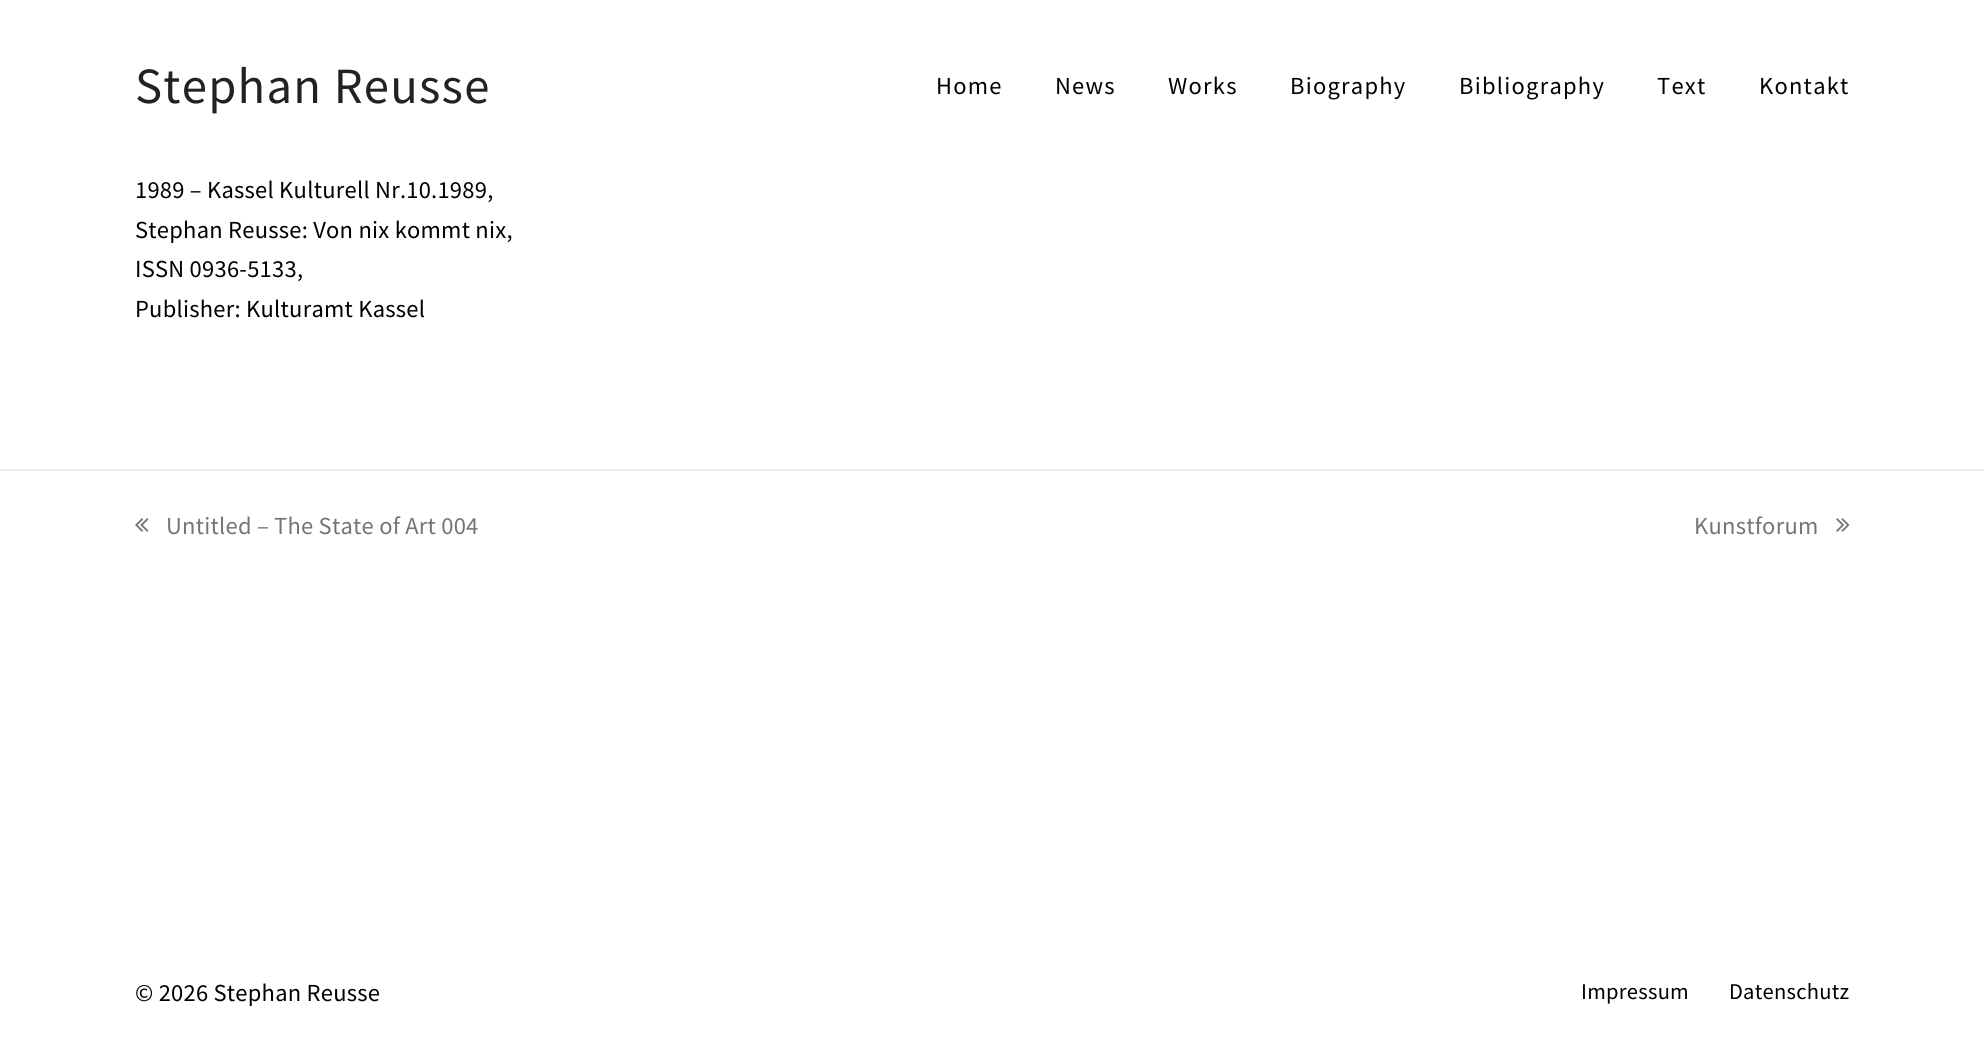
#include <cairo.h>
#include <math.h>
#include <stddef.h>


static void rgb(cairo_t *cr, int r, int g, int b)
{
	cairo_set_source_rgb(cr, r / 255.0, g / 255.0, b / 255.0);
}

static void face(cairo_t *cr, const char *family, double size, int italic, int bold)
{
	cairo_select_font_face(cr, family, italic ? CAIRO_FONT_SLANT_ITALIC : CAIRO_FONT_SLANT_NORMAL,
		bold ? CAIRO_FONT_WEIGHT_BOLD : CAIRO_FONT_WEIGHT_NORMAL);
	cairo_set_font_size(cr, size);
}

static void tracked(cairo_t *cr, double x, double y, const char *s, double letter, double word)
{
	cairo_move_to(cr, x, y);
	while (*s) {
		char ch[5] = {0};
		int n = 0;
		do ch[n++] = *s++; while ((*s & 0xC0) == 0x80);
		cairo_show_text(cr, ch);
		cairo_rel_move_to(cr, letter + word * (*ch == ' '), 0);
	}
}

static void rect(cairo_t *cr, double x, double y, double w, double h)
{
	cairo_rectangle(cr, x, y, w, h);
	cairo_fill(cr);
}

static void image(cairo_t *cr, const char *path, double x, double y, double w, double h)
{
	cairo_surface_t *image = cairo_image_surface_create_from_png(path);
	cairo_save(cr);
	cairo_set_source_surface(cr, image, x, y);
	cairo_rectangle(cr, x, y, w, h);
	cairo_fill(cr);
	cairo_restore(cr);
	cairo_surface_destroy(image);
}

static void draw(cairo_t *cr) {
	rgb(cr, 255, 255, 255);
	cairo_paint(cr);
	face(cr, "Source Sans Pro", 50.75, 0, 0);
	rgb(cr, 34, 34, 34);
	tracked(cr, 135, 103, "Stephan Reusse", 1.25, 0);
	face(cr, "Source Sans Pro", 24.5, 0, 0);
	rgb(cr, 0, 0, 0);
	tracked(cr, 936, 94, "Home", 1.25, 0);
	tracked(cr, 1055, 94, "News", 1.25, 0);
	tracked(cr, 1168, 94, "Works", 1.25, 0);
	tracked(cr, 1290, 94, "Biography", 1.25, 0);
	tracked(cr, 1459, 94, "Bibliography", 1.25, 0);
	tracked(cr, 1657, 94, "Text", 1.25, 0);
	tracked(cr, 1759, 94, "Kontakt", 1.25, 0);
	tracked(cr, 135, 198, "1989 – Kassel Kulturell Nr.10.1989,", 0.25, 0);
	tracked(cr, 135, 238, "Stephan Reusse: Von nix kommt nix,", 0.25, 0);
	tracked(cr, 135, 277, "ISSN 0936-5133,", 0.25, 0);
	tracked(cr, 135, 317, "Publisher: Kulturamt Kassel", 0.25, 0);
	rgb(cr, 238, 238, 238);
	rect(cr, 0, 469, 1984, 2);
	image(cr, "image0.png", 135, 518, 14, 14);
	rgb(cr, 117, 117, 117);
	tracked(cr, 166, 534, "Untitled – The State of Art 004", 0.25, 0);
	tracked(cr, 1694, 534, "Kunstforum", 0.25, 0);
	image(cr, "image1.png", 1836, 518, 14, 14);
	rgb(cr, 0, 0, 0);
	tracked(cr, 135, 1001, "© 2026 Stephan Reusse", 0.25, 0);
	face(cr, "Source Sans Pro", 22.5, 0, 0);
	tracked(cr, 1581, 999, "Impressum", 0.25, 0);
	tracked(cr, 1729, 999, "Datenschutz", 0.25, 0);
}

int main(void) {
	cairo_surface_t *surface = cairo_image_surface_create(CAIRO_FORMAT_RGB24, 1984, 1047);
	cairo_t *cr = cairo_create(surface);
	cairo_font_options_t *options = cairo_font_options_create();
	cairo_font_options_set_hint_metrics(options, CAIRO_HINT_METRICS_OFF);
	cairo_font_options_set_hint_style(options, CAIRO_HINT_STYLE_NONE);
	cairo_set_font_options(cr, options);
	cairo_set_miter_limit(cr, 4);
	draw(cr);
	cairo_surface_write_to_png(surface, "render.png");
	cairo_font_options_destroy(options);
	cairo_destroy(cr);
	cairo_surface_destroy(surface);
	return 0;
}
